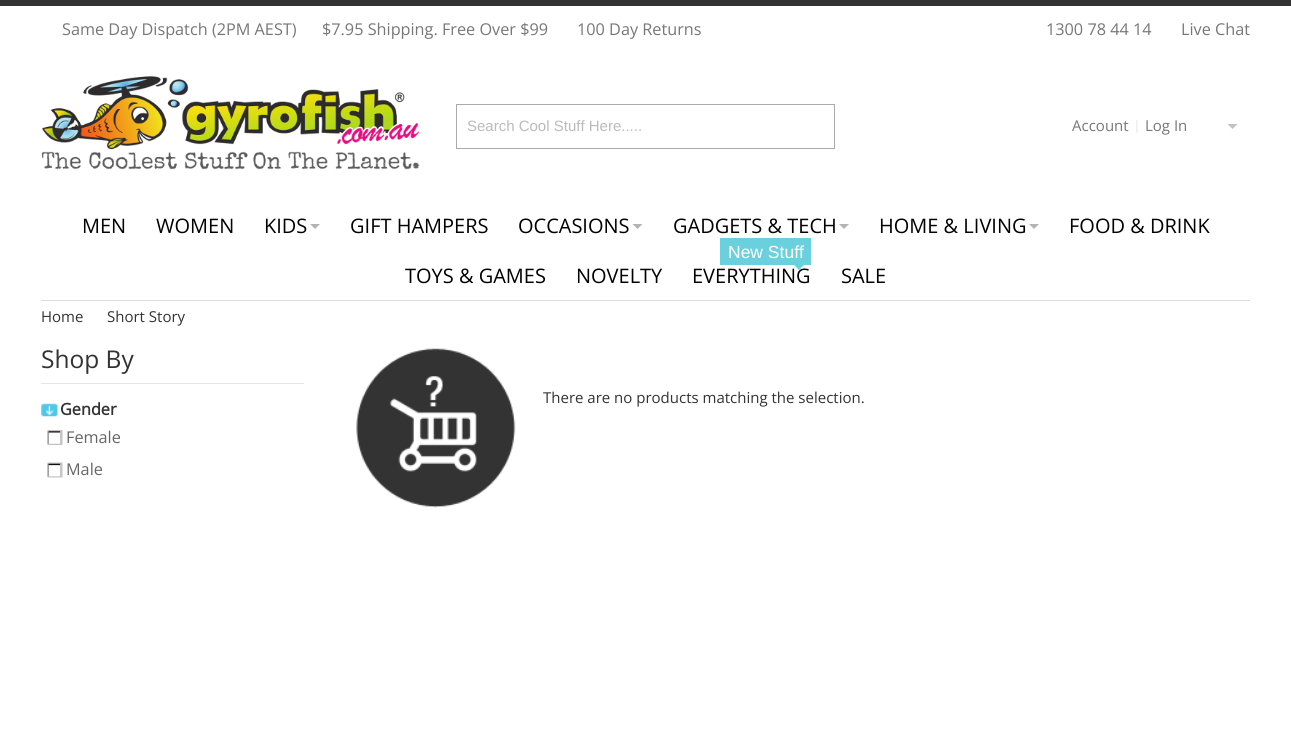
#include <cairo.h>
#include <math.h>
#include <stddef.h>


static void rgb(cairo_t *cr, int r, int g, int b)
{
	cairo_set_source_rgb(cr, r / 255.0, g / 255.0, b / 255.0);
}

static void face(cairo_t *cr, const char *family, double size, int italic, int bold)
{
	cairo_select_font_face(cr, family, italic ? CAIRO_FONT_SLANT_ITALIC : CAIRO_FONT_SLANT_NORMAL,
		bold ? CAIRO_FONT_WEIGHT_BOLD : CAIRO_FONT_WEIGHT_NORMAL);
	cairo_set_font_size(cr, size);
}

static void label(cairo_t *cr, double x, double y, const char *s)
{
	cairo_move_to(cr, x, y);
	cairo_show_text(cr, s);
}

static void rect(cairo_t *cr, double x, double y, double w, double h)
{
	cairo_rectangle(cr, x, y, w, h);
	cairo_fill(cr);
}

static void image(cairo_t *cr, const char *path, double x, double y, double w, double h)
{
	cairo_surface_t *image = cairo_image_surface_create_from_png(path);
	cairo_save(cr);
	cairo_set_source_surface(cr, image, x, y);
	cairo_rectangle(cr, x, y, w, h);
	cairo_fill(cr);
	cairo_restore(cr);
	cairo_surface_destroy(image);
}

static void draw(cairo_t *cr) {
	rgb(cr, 255, 255, 255);
	cairo_paint(cr);
	rgb(cr, 51, 51, 51);
	rect(cr, 0, 0, 1291, 6);
	face(cr, "Open Sans", 16.25, 0, 0);
	rgb(cr, 119, 119, 119);
	label(cr, 62, 35, "Same Day Dispatch (2PM AEST)");
	label(cr, 322, 35, "$7.95 Shipping. Free Over $99");
	label(cr, 577, 35, "100 Day Returns");
	label(cr, 1046, 35, "1300 78 44 14");
	label(cr, 1181, 35, "Live Chat");
	image(cr, "image0.png", 41, 76, 379, 94);
	cairo_rectangle(cr, 456.5, 104.5, 378, 44);
	rgb(cr, 170, 170, 170);
	cairo_set_line_width(cr, 1);
	cairo_stroke(cr);
	face(cr, "Liberation Sans", 15, 0, 0);
	rgb(cr, 187, 187, 187);
	label(cr, 467, 131, "Search Cool Stuff Here.....");
	face(cr, "Open Sans", 15, 0, 0);
	rgb(cr, 119, 119, 119);
	label(cr, 1072, 131, "Account");
	image(cr, "image1.png", 1136, 120, 2, 13);
	label(cr, 1145, 131, "Log In");
	rgb(cr, 194, 194, 194);
	cairo_new_path(cr);
	cairo_move_to(cr, 1227.5, 124);
	cairo_line_to(cr, 1237.5, 124);
	cairo_line_to(cr, 1232.5, 129);
	cairo_close_path(cr);
	cairo_fill(cr);
	face(cr, "Open Sans", 20, 0, 0);
	rgb(cr, 0, 0, 0);
	label(cr, 82, 233, "MEN");
	label(cr, 156, 233, "WOMEN");
	label(cr, 264, 233, "KIDS");
	rgb(cr, 179, 179, 179);
	cairo_new_path(cr);
	cairo_move_to(cr, 310, 224);
	cairo_line_to(cr, 320, 224);
	cairo_line_to(cr, 315, 229);
	cairo_close_path(cr);
	cairo_fill(cr);
	rgb(cr, 0, 0, 0);
	label(cr, 350, 233, "GIFT HAMPERS");
	label(cr, 518, 233, "OCCASIONS");
	rgb(cr, 179, 179, 179);
	cairo_new_path(cr);
	cairo_move_to(cr, 632.5, 224);
	cairo_line_to(cr, 642.5, 224);
	cairo_line_to(cr, 637.5, 229);
	cairo_close_path(cr);
	cairo_fill(cr);
	rgb(cr, 0, 0, 0);
	label(cr, 673, 233, "GADGETS & TECH");
	rgb(cr, 179, 179, 179);
	cairo_new_path(cr);
	cairo_move_to(cr, 839, 224);
	cairo_line_to(cr, 849, 224);
	cairo_line_to(cr, 844, 229);
	cairo_close_path(cr);
	cairo_fill(cr);
	rgb(cr, 0, 0, 0);
	label(cr, 879, 233, "HOME & LIVING");
	rgb(cr, 179, 179, 179);
	cairo_new_path(cr);
	cairo_move_to(cr, 1029, 224);
	cairo_line_to(cr, 1039, 224);
	cairo_line_to(cr, 1034, 229);
	cairo_close_path(cr);
	cairo_fill(cr);
	rgb(cr, 0, 0, 0);
	label(cr, 1069, 233, "FOOD & DRINK");
	label(cr, 405, 283, "TOYS & GAMES");
	label(cr, 576, 283, "NOVELTY");
	rgb(cr, 107, 208, 222);
	rect(cr, 720, 238, 91, 27);
	face(cr, "Liberation Sans", 17.5, 0, 0);
	rgb(cr, 255, 255, 255);
	label(cr, 728, 258, "New Stuff");
	face(cr, "Open Sans", 20, 0, 0);
	rgb(cr, 0, 0, 0);
	label(cr, 692, 283, "EVERYTHING");
	rgb(cr, 107, 208, 222);
	cairo_new_path(cr);
	cairo_move_to(cr, 794, 265);
	cairo_line_to(cr, 804, 265);
	cairo_line_to(cr, 799, 270);
	cairo_close_path(cr);
	cairo_fill(cr);
	rgb(cr, 0, 0, 0);
	label(cr, 841, 283, "SALE");
	rgb(cr, 221, 221, 221);
	rect(cr, 41, 300, 1209, 1);
	face(cr, "Open Sans", 15, 0, 0);
	rgb(cr, 51, 51, 51);
	label(cr, 41, 322, "Home");
	label(cr, 107, 322, "Short Story");
	rgb(cr, 229, 229, 229);
	rect(cr, 41, 383, 263, 1);
	face(cr, "Open Sans", 24.5, 0, 0);
	rgb(cr, 51, 51, 51);
	label(cr, 41, 368, "Shop By");
	image(cr, "image2.png", 41, 403, 17, 14);
	face(cr, "Open Sans", 16.25, 0, 1);
	label(cr, 60, 415, "Gender");
	image(cr, "image3.png", 47, 430, 16, 15);
	face(cr, "Open Sans", 16.25, 0, 0);
	rgb(cr, 102, 102, 102);
	label(cr, 66, 443, "Female");
	image(cr, "image4.png", 47, 462, 16, 16);
	label(cr, 66, 475, "Male");
	image(cr, "image5.png", 356, 348, 160, 160);
	face(cr, "Open Sans", 15, 0, 0);
	rgb(cr, 51, 51, 51);
	label(cr, 543, 403, "There are no products matching the selection.");
}

int main(void) {
	cairo_surface_t *surface = cairo_image_surface_create(CAIRO_FORMAT_RGB24, 1291, 742);
	cairo_t *cr = cairo_create(surface);
	cairo_font_options_t *options = cairo_font_options_create();
	cairo_font_options_set_hint_metrics(options, CAIRO_HINT_METRICS_OFF);
	cairo_font_options_set_hint_style(options, CAIRO_HINT_STYLE_NONE);
	cairo_set_font_options(cr, options);
	cairo_set_miter_limit(cr, 4);
	draw(cr);
	cairo_surface_write_to_png(surface, "render.png");
	cairo_font_options_destroy(options);
	cairo_destroy(cr);
	cairo_surface_destroy(surface);
	return 0;
}
